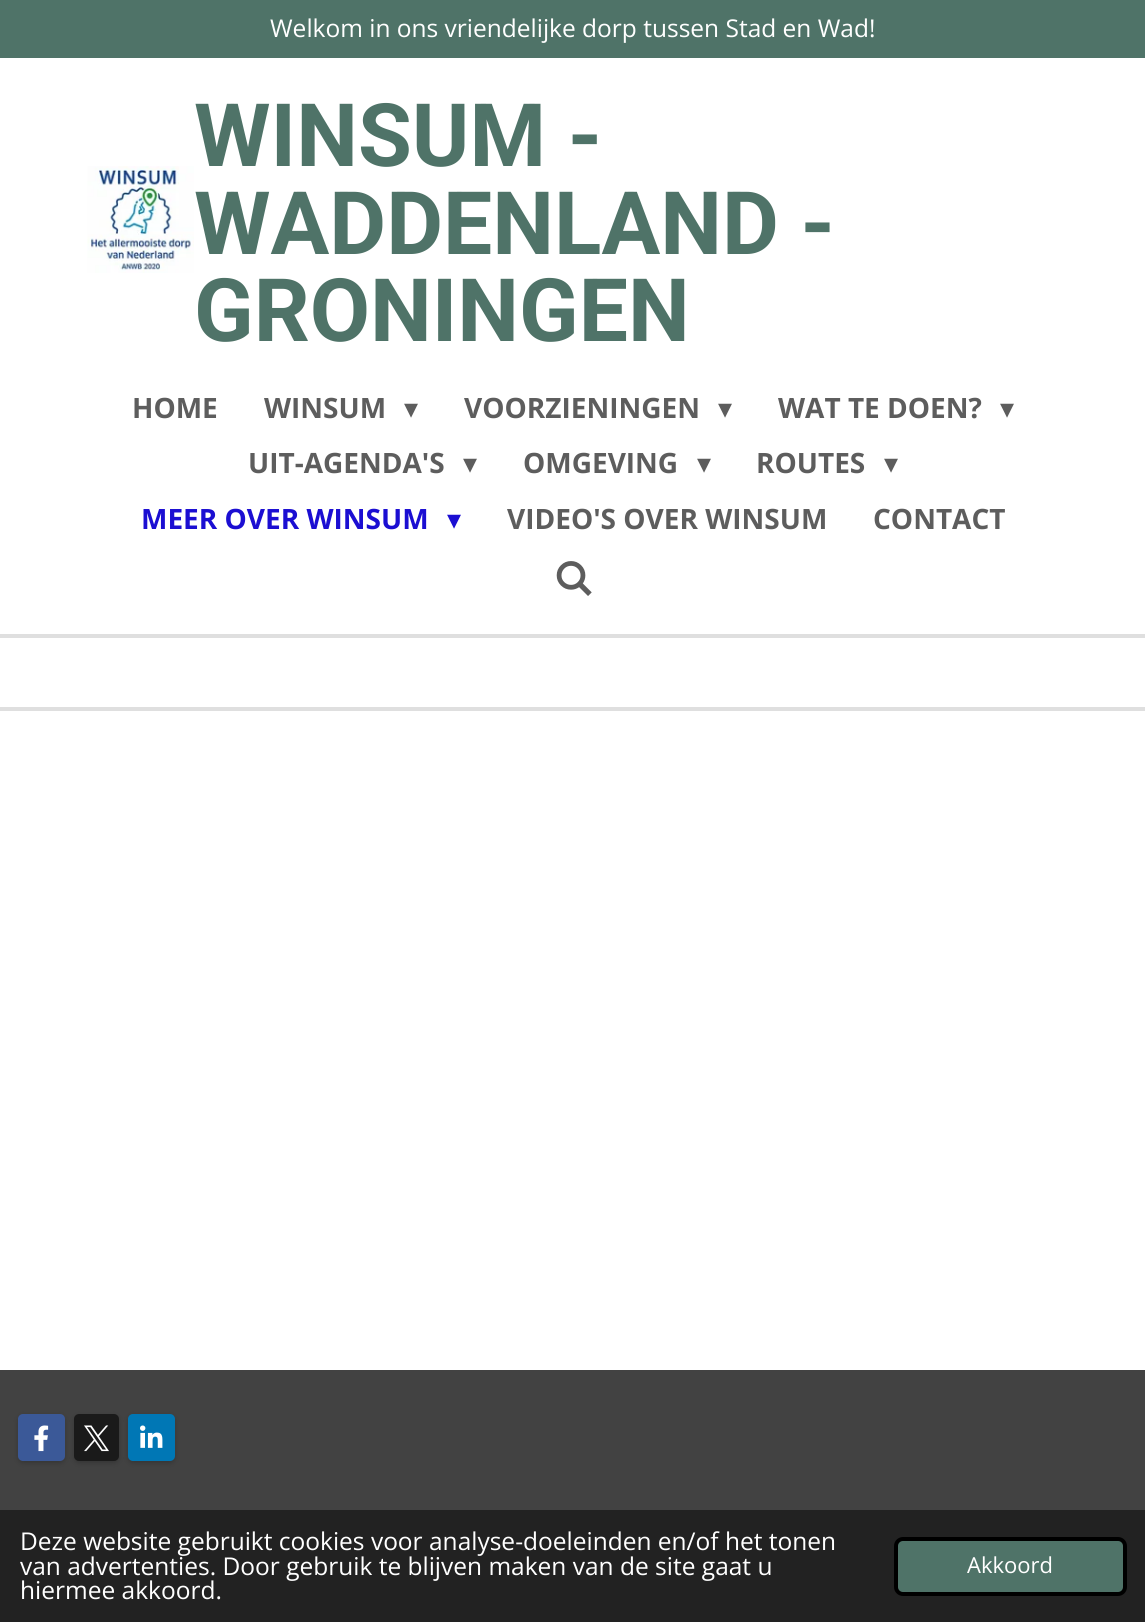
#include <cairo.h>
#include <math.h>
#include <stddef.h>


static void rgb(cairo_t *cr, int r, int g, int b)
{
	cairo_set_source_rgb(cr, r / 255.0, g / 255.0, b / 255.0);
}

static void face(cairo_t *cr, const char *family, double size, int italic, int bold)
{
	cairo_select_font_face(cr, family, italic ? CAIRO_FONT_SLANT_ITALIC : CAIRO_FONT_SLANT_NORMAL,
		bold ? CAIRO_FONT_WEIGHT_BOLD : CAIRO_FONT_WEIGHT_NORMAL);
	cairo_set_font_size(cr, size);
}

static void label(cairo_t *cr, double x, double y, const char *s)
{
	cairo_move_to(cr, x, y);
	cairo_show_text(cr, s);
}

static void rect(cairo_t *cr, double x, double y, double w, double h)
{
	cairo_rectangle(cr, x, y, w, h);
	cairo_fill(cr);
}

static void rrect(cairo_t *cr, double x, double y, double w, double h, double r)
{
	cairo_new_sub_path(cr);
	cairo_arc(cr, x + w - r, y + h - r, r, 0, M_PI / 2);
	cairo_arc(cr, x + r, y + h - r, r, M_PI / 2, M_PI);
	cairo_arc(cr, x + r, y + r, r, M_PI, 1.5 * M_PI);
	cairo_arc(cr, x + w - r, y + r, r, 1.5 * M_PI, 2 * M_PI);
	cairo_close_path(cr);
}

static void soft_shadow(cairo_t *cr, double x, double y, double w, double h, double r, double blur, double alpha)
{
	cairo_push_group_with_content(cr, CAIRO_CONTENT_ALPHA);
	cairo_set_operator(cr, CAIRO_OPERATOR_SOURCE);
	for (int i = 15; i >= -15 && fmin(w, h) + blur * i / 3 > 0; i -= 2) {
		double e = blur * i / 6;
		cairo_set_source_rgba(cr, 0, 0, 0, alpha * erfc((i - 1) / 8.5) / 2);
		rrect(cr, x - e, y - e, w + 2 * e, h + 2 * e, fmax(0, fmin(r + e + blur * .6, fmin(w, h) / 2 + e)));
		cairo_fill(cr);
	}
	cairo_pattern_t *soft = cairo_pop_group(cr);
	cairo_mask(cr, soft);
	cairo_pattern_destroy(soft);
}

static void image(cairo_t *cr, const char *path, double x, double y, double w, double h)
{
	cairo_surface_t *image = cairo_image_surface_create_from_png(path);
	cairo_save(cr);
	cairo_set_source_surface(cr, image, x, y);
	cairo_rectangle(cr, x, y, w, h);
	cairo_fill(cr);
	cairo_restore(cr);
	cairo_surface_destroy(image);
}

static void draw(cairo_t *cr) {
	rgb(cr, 255, 255, 255);
	cairo_paint(cr);
	rgb(cr, 79, 115, 104);
	rect(cr, 0, 0, 1145, 58);
	face(cr, "Open Sans", 24.5, 0, 0);
	rgb(cr, 255, 255, 255);
	label(cr, 270, 37, "Welkom in ons vriendelijke dorp tussen Stad en Wad!");
	image(cr, "image0.png", 87, 166, 107, 107);
	face(cr, "Roboto", 87.5, 0, 1);
	rgb(cr, 79, 115, 104);
	label(cr, 194, 166, "WINSUM -");
	label(cr, 194, 254, "WADDENLAND -");
	label(cr, 194, 341, "GRONINGEN");
	face(cr, "Open Sans", 28, 0, 1);
	rgb(cr, 93, 93, 93);
	label(cr, 132, 418, "HOME");
	label(cr, 264, 418, "WINSUM");
	face(cr, "DejaVu Sans", 28, 0, 0);
	label(cr, 404, 418, "▾");
	face(cr, "Open Sans", 28, 0, 1);
	label(cr, 464, 418, "VOORZIENINGEN");
	face(cr, "DejaVu Sans", 28, 0, 0);
	label(cr, 718, 418, "▾");
	face(cr, "Open Sans", 28, 0, 1);
	label(cr, 778, 418, "WAT TE DOEN?");
	face(cr, "DejaVu Sans", 28, 0, 0);
	label(cr, 1000, 418, "▾");
	face(cr, "Open Sans", 28, 0, 1);
	label(cr, 248, 473, "UIT-AGENDA'S");
	face(cr, "DejaVu Sans", 28, 0, 0);
	label(cr, 463, 473, "▾");
	face(cr, "Open Sans", 28, 0, 1);
	label(cr, 523, 473, "OMGEVING");
	face(cr, "DejaVu Sans", 28, 0, 0);
	label(cr, 697, 473, "▾");
	face(cr, "Open Sans", 28, 0, 1);
	label(cr, 756, 473, "ROUTES");
	face(cr, "DejaVu Sans", 28, 0, 0);
	label(cr, 884, 473, "▾");
	face(cr, "Open Sans", 28, 0, 1);
	rgb(cr, 27, 14, 210);
	label(cr, 141, 529, "MEER OVER WINSUM");
	face(cr, "DejaVu Sans", 28, 0, 0);
	label(cr, 447, 529, "▾");
	face(cr, "Open Sans", 28, 0, 1);
	rgb(cr, 93, 93, 93);
	label(cr, 507, 529, "VIDEO'S OVER WINSUM");
	label(cr, 873, 529, "CONTACT");
	image(cr, "image1.png", 556, 561, 36, 35);
	rgb(cr, 223, 223, 223);
	rect(cr, 0, 634, 1145, 4);
	rect(cr, 0, 707, 1145, 4);
	rgb(cr, 66, 66, 66);
	rect(cr, 0, 1370, 1145, 140);
	rgb(cr, 0, 0, 0);
	soft_shadow(cr, 18, 1416, 47, 47, 5, 2.5, 0.2);
	rgb(cr, 59, 89, 152);
	rrect(cr, 18, 1414, 47, 47, 5);
	cairo_fill(cr);
	image(cr, "image2.png", 34, 1425, 15, 27);
	rgb(cr, 0, 0, 0);
	soft_shadow(cr, 74, 1416, 45, 47, 5, 2.5, 0.2);
	rgb(cr, 26, 26, 26);
	rrect(cr, 74, 1414, 45, 47, 5);
	cairo_fill(cr);
	image(cr, "image3.png", 84, 1425, 25, 27);
	rgb(cr, 0, 0, 0);
	soft_shadow(cr, 128, 1416, 47, 47, 5, 2.5, 0.2);
	rgb(cr, 0, 119, 181);
	rrect(cr, 128, 1414, 47, 47, 5);
	cairo_fill(cr);
	image(cr, "image4.png", 140, 1425, 23, 23);
	rgb(cr, 34, 34, 34);
	rect(cr, 0, 1510, 1145, 112);
	face(cr, "Open Sans", 24.5, 0, 0);
	rgb(cr, 255, 255, 255);
	label(cr, 20, 1550, "Deze website gebruikt cookies voor analyse-doeleinden en/of het tonen");
	label(cr, 20, 1575, "van advertenties. Door gebruik te blijven maken van de site gaat u");
	label(cr, 20, 1599, "hiermee akkoord.");
	rgb(cr, 79, 115, 104);
	rrect(cr, 896, 1539, 229, 55, 7);
	cairo_fill_preserve(cr);
	rgb(cr, 0, 0, 0);
	cairo_set_line_width(cr, 4);
	cairo_stroke(cr);
	face(cr, "Open Sans", 22, 0, 0);
	rgb(cr, 255, 255, 255);
	label(cr, 967, 1573, "Akkoord");
}

int main(void) {
	cairo_surface_t *surface = cairo_image_surface_create(CAIRO_FORMAT_RGB24, 1145, 1622);
	cairo_t *cr = cairo_create(surface);
	cairo_font_options_t *options = cairo_font_options_create();
	cairo_font_options_set_hint_metrics(options, CAIRO_HINT_METRICS_OFF);
	cairo_font_options_set_hint_style(options, CAIRO_HINT_STYLE_NONE);
	cairo_set_font_options(cr, options);
	cairo_set_miter_limit(cr, 4);
	draw(cr);
	cairo_surface_write_to_png(surface, "render.png");
	cairo_font_options_destroy(options);
	cairo_destroy(cr);
	cairo_surface_destroy(surface);
	return 0;
}
